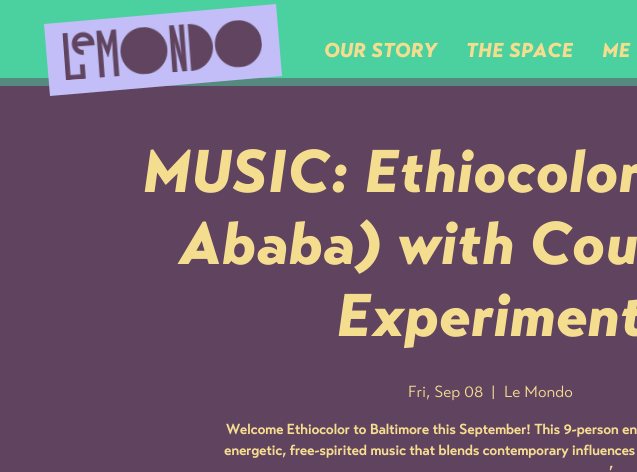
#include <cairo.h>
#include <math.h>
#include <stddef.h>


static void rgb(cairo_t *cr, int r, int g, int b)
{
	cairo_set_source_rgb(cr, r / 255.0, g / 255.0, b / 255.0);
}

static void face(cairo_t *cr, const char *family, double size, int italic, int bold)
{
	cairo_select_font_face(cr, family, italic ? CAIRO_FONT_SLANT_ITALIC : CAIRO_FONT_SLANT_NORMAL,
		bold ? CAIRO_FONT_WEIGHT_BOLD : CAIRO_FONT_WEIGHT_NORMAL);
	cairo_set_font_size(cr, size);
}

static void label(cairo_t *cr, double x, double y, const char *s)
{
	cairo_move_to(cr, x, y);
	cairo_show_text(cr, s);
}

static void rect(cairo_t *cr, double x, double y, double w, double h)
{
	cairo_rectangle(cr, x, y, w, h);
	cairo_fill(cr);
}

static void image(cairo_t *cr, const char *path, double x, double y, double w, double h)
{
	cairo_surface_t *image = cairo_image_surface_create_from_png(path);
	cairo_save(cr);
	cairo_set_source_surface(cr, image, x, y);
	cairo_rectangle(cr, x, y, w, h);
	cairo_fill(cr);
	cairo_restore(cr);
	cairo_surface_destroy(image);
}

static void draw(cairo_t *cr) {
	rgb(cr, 96, 67, 95);
	cairo_paint(cr);
	rgb(cr, 75, 209, 160);
	rect(cr, 0, 0, 637, 78);
	rgb(cr, 86, 137, 127);
	rect(cr, 0, 78, 637, 8);
	rgb(cr, 195, 190, 247);
	cairo_new_path(cr);
	cairo_move_to(cr, 276, 4);
	cairo_line_to(cr, 282, 76);
	cairo_line_to(cr, 50, 96);
	cairo_line_to(cr, 44, 24);
	cairo_close_path(cr);
	cairo_fill(cr);
	image(cr, "image0.png", 62, 20, 200, 61);
	face(cr, "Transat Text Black", 20, 1, 0);
	rgb(cr, 245, 221, 144);
	label(cr, 324, 57, "OUR STORY");
	label(cr, 466, 57, "THE SPACE");
	label(cr, 602, 57, "ME");
	face(cr, "Transat Text Black", 60, 1, 0);
	label(cr, 142, 192, "MUSIC: Ethiocolor");
	label(cr, 179, 264, "Ababa) with Cou");
	label(cr, 336, 336, "Experiment");
	face(cr, "Transat Text", 16, 0, 0);
	label(cr, 408, 397, "Fri, Sep 08");
	label(cr, 491, 397, "|");
	label(cr, 504, 397, "Le Mondo");
	face(cr, "Transat Text", 14, 0, 1);
	label(cr, 226, 434, "Welcome Ethiocolor to Baltimore this September! This 9-person en");
	label(cr, 224, 455, "energetic, free-spirited music that blends contemporary influences");
	label(cr, 609, 476, "’");
}

int main(void) {
	cairo_surface_t *surface = cairo_image_surface_create(CAIRO_FORMAT_RGB24, 637, 472);
	cairo_t *cr = cairo_create(surface);
	cairo_font_options_t *options = cairo_font_options_create();
	cairo_font_options_set_hint_metrics(options, CAIRO_HINT_METRICS_OFF);
	cairo_font_options_set_hint_style(options, CAIRO_HINT_STYLE_NONE);
	cairo_set_font_options(cr, options);
	cairo_set_miter_limit(cr, 4);
	draw(cr);
	cairo_surface_write_to_png(surface, "render.png");
	cairo_font_options_destroy(options);
	cairo_destroy(cr);
	cairo_surface_destroy(surface);
	return 0;
}
